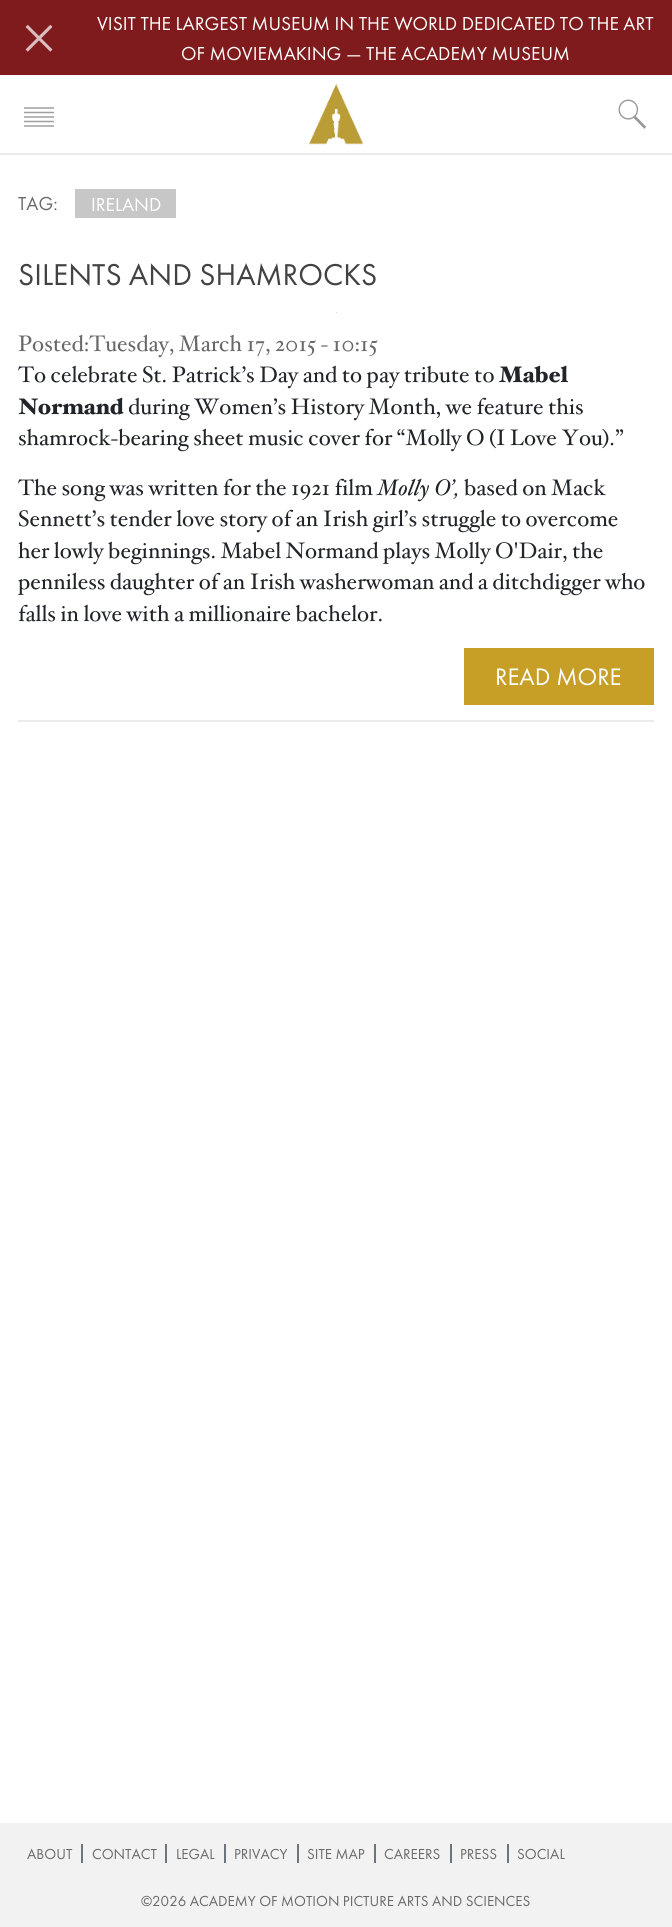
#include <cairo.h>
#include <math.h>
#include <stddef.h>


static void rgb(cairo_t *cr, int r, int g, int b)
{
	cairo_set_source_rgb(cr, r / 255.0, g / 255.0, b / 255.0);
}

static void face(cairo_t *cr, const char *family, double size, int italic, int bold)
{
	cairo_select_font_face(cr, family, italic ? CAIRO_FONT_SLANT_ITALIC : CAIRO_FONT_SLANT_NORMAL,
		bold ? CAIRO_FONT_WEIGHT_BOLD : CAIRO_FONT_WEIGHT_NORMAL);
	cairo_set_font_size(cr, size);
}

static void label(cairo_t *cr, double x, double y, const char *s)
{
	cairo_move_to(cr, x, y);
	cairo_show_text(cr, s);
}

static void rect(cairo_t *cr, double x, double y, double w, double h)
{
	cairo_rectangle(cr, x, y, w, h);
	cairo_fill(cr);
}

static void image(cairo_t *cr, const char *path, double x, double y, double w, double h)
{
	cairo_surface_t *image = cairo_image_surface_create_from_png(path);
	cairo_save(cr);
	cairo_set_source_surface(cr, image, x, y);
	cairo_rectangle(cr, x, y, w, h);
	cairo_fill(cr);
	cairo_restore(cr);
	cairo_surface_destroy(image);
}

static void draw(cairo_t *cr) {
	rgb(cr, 255, 255, 255);
	cairo_paint(cr);
	rgb(cr, 128, 27, 29);
	rect(cr, 0, 0, 672, 75);
	image(cr, "image0.png", 25, 24, 28, 28);
	face(cr, "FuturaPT", 19.5, 0, 0);
	rgb(cr, 255, 255, 255);
	label(cr, 97, 30, "VISIT THE LARGEST MUSEUM IN THE WORLD DEDICATED TO THE ART");
	label(cr, 181, 60, "OF MOVIEMAKING — THE ACADEMY MUSEUM");
	image(cr, "image1.png", 24, 107, 30, 20);
	image(cr, "image2.png", 308, 84, 56, 61);
	image(cr, "image3.png", 618, 99, 29, 30);
	rgb(cr, 235, 235, 235);
	rect(cr, 0, 153, 672, 2);
	rgb(cr, 105, 105, 105);
	label(cr, 18, 210, "TAG:");
	rgb(cr, 199, 199, 199);
	rect(cr, 75, 189, 101, 29);
	rgb(cr, 255, 255, 255);
	label(cr, 91, 211, "IRELAND");
	rgb(cr, 235, 235, 235);
	rect(cr, 18, 720, 636, 2);
	face(cr, "FuturaPT", 31.25, 0, 0);
	rgb(cr, 66, 66, 66);
	label(cr, 18, 285, "SILENTS AND SHAMROCKS");
	image(cr, "image4.png", 336, 312, 2, 1);
	face(cr, "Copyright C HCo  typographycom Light", 22.5, 0, 0);
	rgb(cr, 105, 105, 105);
	label(cr, 18, 351, "Posted:Tuesday, March 17, 2015 - 10:15");
	rgb(cr, 33, 37, 41);
	label(cr, 18, 382, "To celebrate St. Patrick’s Day and to pay tribute to");
	face(cr, "Copyright C HCo  typographycom", 22.5, 0, 0);
	label(cr, 499, 382, "Mabel");
	label(cr, 18, 414, "Normand");
	face(cr, "Copyright C HCo  typographycom Light", 22.5, 0, 0);
	label(cr, 128, 414, "during Women’s History Month, we feature this");
	label(cr, 18, 445, "shamrock-bearing sheet music cover for “Molly O (I Love You).”");
	label(cr, 18, 495, "The song was written for the 1921 film");
	face(cr, "Copyright C HCo  typographycom Light", 22.5, 1, 0);
	label(cr, 377, 495, "Molly O’,");
	face(cr, "Copyright C HCo  typographycom Light", 22.5, 0, 0);
	label(cr, 464, 495, "based on Mack");
	label(cr, 18, 526, "Sennett’s tender love story of an Irish girl’s struggle to overcome");
	label(cr, 18, 558, "her lowly beginnings. Mabel Normand plays Molly O'Dair, the");
	label(cr, 18, 589, "penniless daughter of an Irish washerwoman and a ditchdigger who");
	label(cr, 18, 621, "falls in love with a millionaire bachelor.");
	rgb(cr, 199, 159, 39);
	rect(cr, 464, 648, 190, 57);
	face(cr, "FuturaPT", 24.75, 0, 0);
	rgb(cr, 255, 255, 255);
	label(cr, 495, 685, "READ MORE");
	rgb(cr, 242, 242, 242);
	rect(cr, 0, 1823, 672, 104);
	rgb(cr, 108, 117, 125);
	rect(cr, 81, 1844, 2, 19);
	face(cr, "FuturaPT", 15, 0, 0);
	rgb(cr, 105, 105, 105);
	label(cr, 27, 1859, "ABOUT");
	rgb(cr, 108, 117, 125);
	rect(cr, 165, 1844, 2, 19);
	rgb(cr, 105, 105, 105);
	label(cr, 92, 1859, "CONTACT");
	rgb(cr, 108, 117, 125);
	rect(cr, 224, 1844, 2, 19);
	rgb(cr, 105, 105, 105);
	label(cr, 176, 1859, "LEGAL");
	rgb(cr, 108, 117, 125);
	rect(cr, 297, 1844, 2, 19);
	rgb(cr, 105, 105, 105);
	label(cr, 234, 1859, "PRIVACY");
	rgb(cr, 108, 117, 125);
	rect(cr, 374, 1844, 2, 19);
	rgb(cr, 105, 105, 105);
	label(cr, 307, 1859, "SITE MAP");
	rgb(cr, 108, 117, 125);
	rect(cr, 450, 1844, 2, 19);
	rgb(cr, 105, 105, 105);
	label(cr, 384, 1859, "CAREERS");
	rgb(cr, 108, 117, 125);
	rect(cr, 507, 1844, 2, 19);
	rgb(cr, 105, 105, 105);
	label(cr, 460, 1859, "PRESS");
	label(cr, 517, 1859, "SOCIAL");
	label(cr, 141, 1906, "©2026 ACADEMY OF MOTION PICTURE ARTS AND SCIENCES");
}

int main(void) {
	cairo_surface_t *surface = cairo_image_surface_create(CAIRO_FORMAT_RGB24, 672, 1927);
	cairo_t *cr = cairo_create(surface);
	cairo_font_options_t *options = cairo_font_options_create();
	cairo_font_options_set_hint_metrics(options, CAIRO_HINT_METRICS_OFF);
	cairo_font_options_set_hint_style(options, CAIRO_HINT_STYLE_NONE);
	cairo_set_font_options(cr, options);
	cairo_set_miter_limit(cr, 4);
	draw(cr);
	cairo_surface_write_to_png(surface, "render.png");
	cairo_font_options_destroy(options);
	cairo_destroy(cr);
	cairo_surface_destroy(surface);
	return 0;
}
